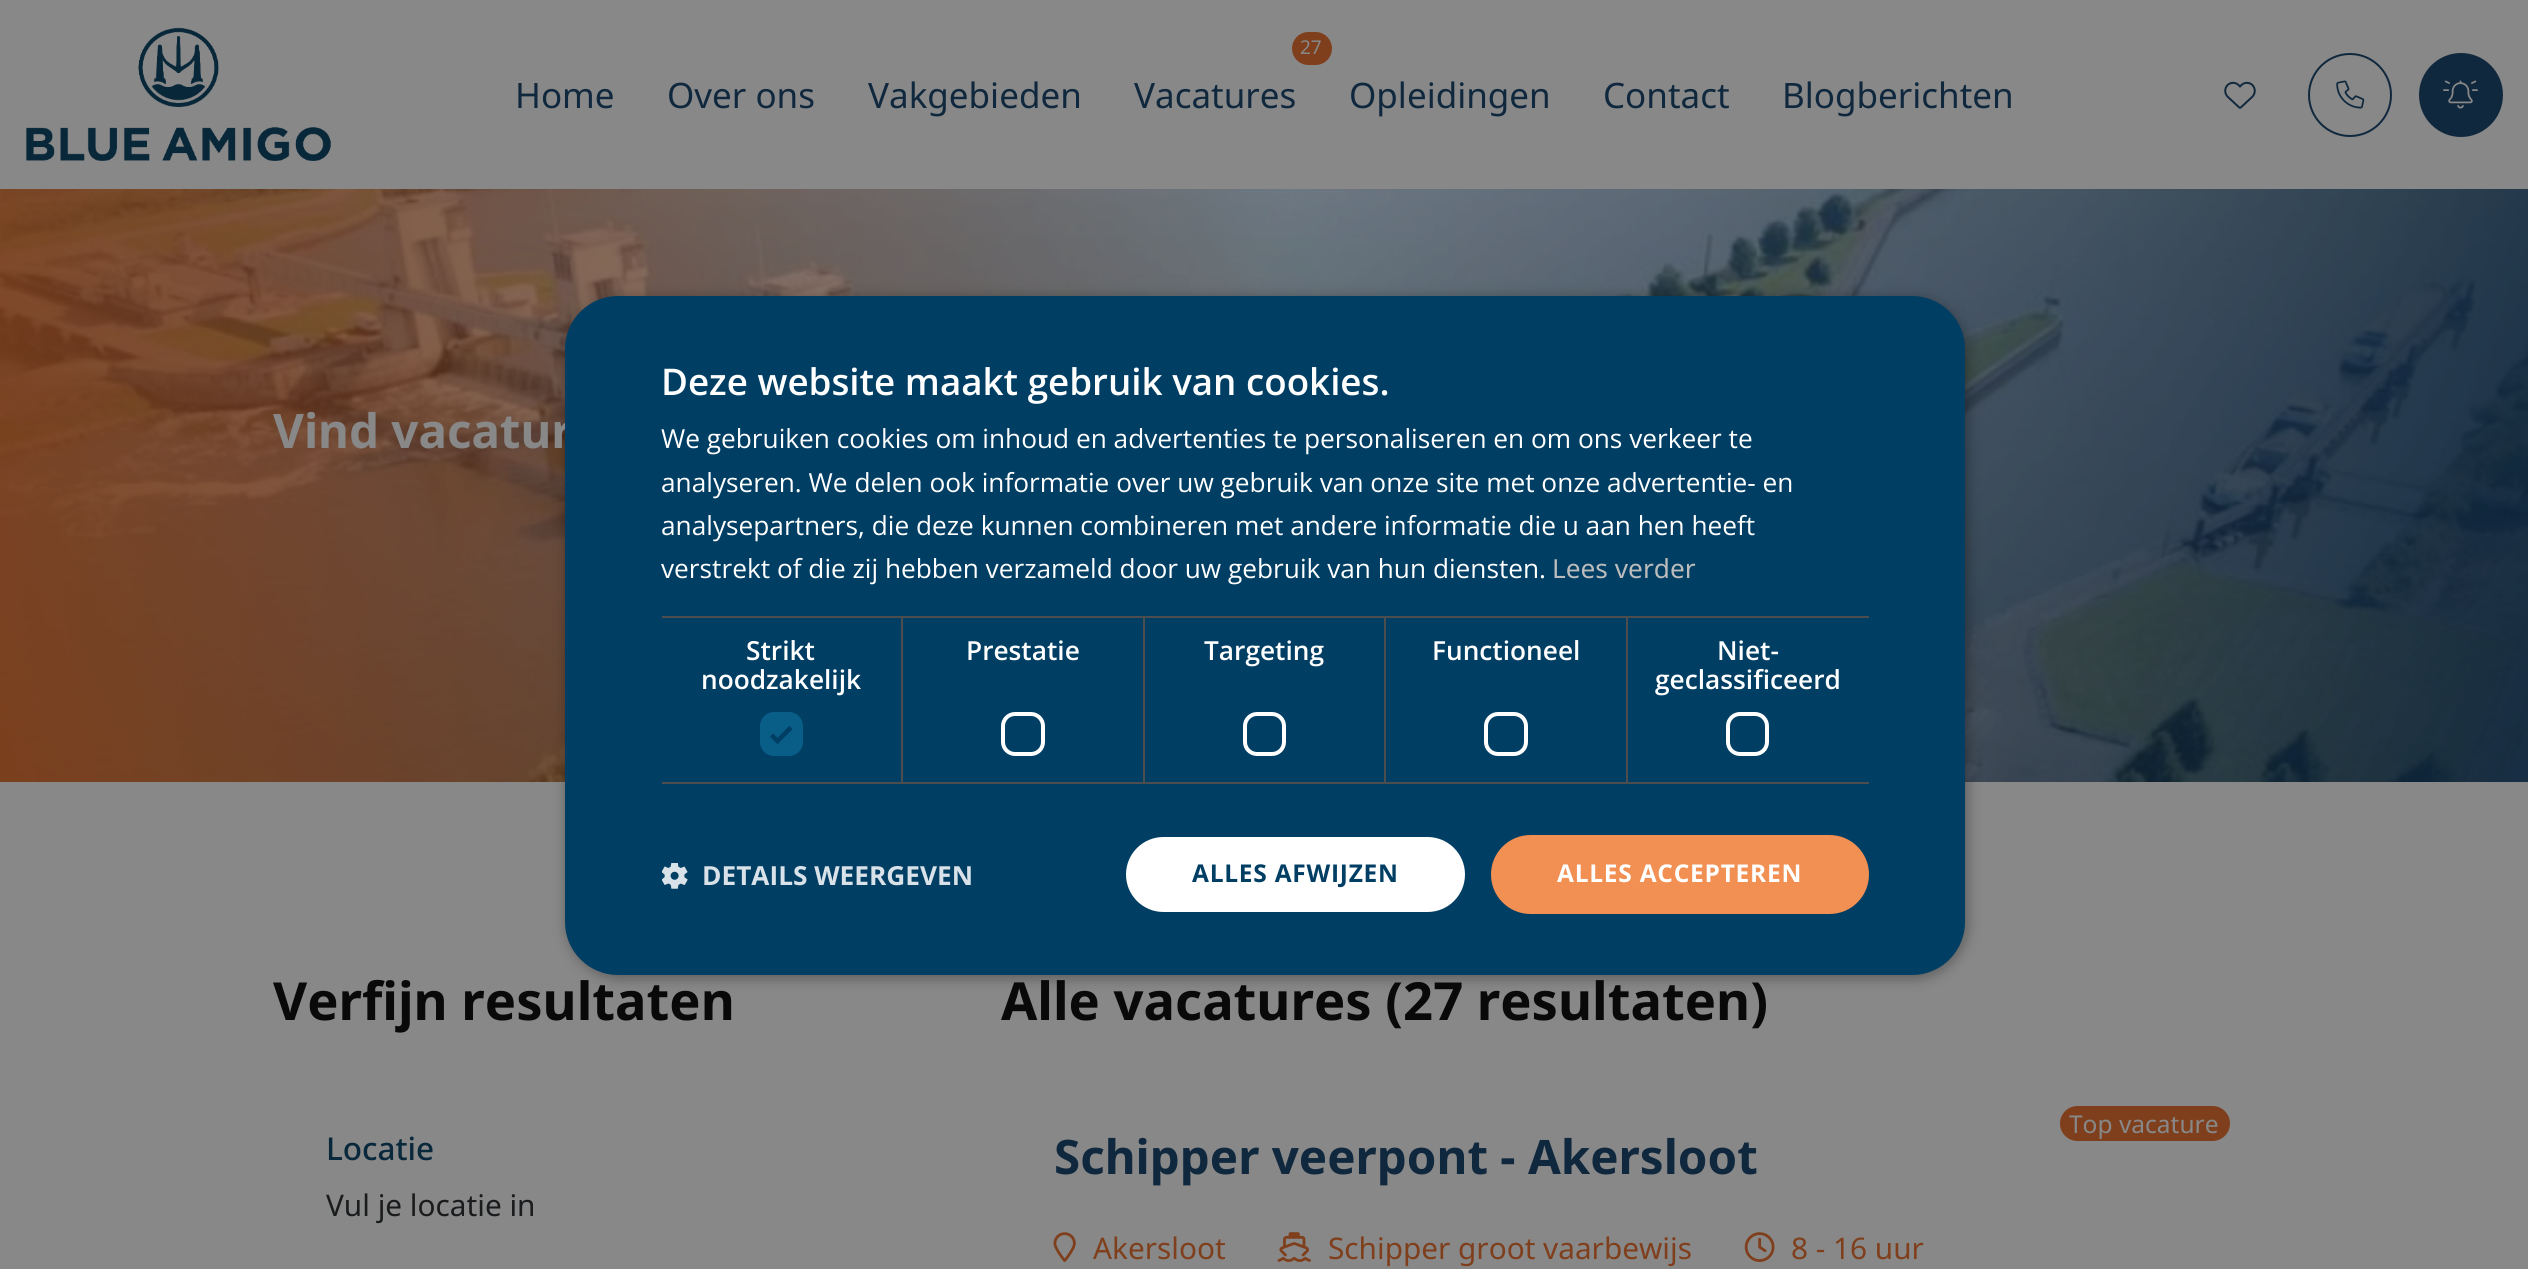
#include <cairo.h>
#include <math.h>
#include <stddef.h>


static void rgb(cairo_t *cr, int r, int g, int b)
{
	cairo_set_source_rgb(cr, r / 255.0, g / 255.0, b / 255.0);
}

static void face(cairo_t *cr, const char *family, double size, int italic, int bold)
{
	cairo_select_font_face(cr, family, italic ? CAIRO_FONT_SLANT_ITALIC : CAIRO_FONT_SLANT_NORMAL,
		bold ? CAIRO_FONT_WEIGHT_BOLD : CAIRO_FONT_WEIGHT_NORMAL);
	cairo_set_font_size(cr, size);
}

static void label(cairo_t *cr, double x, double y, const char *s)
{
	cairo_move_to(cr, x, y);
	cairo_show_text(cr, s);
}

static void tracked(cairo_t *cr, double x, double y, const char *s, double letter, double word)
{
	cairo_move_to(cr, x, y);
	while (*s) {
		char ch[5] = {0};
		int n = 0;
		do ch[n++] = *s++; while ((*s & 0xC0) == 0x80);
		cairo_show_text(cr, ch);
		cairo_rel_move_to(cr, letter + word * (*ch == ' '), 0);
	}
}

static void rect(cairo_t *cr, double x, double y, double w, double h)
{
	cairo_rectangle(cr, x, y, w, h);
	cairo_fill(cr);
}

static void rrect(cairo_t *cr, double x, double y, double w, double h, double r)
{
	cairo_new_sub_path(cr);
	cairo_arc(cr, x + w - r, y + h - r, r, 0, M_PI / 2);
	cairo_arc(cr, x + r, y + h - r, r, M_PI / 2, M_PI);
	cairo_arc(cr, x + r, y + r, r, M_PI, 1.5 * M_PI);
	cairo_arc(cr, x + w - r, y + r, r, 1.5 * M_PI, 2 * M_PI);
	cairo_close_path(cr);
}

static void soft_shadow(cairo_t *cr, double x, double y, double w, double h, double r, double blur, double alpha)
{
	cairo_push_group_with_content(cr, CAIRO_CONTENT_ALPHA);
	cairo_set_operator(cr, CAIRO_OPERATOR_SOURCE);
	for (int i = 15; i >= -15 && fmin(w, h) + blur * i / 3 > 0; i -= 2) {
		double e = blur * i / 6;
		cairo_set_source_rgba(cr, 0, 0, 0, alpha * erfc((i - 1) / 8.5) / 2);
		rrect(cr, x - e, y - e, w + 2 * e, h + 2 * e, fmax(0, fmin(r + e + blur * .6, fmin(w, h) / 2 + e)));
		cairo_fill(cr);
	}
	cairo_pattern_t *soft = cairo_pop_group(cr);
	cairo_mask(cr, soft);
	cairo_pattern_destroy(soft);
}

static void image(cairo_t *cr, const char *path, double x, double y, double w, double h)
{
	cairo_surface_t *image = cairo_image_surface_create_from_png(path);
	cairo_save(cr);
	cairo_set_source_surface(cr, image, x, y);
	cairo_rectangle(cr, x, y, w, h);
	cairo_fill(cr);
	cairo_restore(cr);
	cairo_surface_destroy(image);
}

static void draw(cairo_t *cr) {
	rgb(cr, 136, 136, 136);
	cairo_paint(cr);
	image(cr, "image0.png", 26, 27, 305, 134);
	face(cr, "Noto Sans", 35, 0, 0);
	rgb(cr, 16, 40, 62);
	label(cr, 515, 108, "Home");
	label(cr, 667, 108, "Over ons");
	label(cr, 868, 108, "Vakgebieden");
	rgb(cr, 127, 63, 28);
	rrect(cr, 1292, 32, 40, 33, 16.5);
	cairo_fill(cr);
	face(cr, "Noto Sans", 19, 0, 0);
	rgb(cr, 136, 136, 136);
	label(cr, 1300, 54, "27");
	face(cr, "Noto Sans", 35, 0, 0);
	rgb(cr, 16, 40, 62);
	label(cr, 1134, 108, "Vacatures");
	label(cr, 1349, 108, "Opleidingen");
	label(cr, 1603, 108, "Contact");
	label(cr, 1782, 108, "Blogberichten");
	image(cr, "image1.png", 2224, 81, 32, 28);
	cairo_arc(cr, 2350, 95, 41, 0, 2 * M_PI);
	cairo_stroke(cr);
	image(cr, "image2.png", 2336, 80, 29, 29);
	cairo_arc(cr, 2461, 95, 41, 0, 2 * M_PI);
	cairo_fill_preserve(cr);
	cairo_stroke(cr);
	image(cr, "image3.png", 2443, 80, 35, 29);
	image(cr, "image5.png", 0, 189, 2528, 593);
	rgb(cr, 0, 0, 0);
	soft_shadow(cr, 567, 299, 1400, 679, 53, 7, 0.35);
	face(cr, "Noto Sans", 47.5, 0, 1);
	rgb(cr, 136, 136, 136);
	label(cr, 273, 448, "Vind vacatur");
	rgb(cr, 0, 62, 100);
	rrect(cr, 565, 296, 1400, 679, 53);
	cairo_fill(cr);
	face(cr, "Open Sans SemiBold", 36.75, 0, 0);
	rgb(cr, 255, 255, 255);
	label(cr, 661, 395, "Deze website maakt gebruik van cookies.");
	face(cr, "Open Sans", 26.25, 0, 0);
	label(cr, 661, 448, "We gebruiken cookies om inhoud en advertenties te personaliseren en om ons verkeer te");
	label(cr, 661, 492, "analyseren. We delen ook informatie over uw gebruik van onze site met onze advertentie- en");
	label(cr, 661, 535, "analysepartners, die deze kunnen combineren met andere informatie die u aan hen heeft");
	label(cr, 661, 578, "verstrekt of die zij hebben verzameld door uw gebruik van hun diensten.");
	face(cr, "Noto Sans", 26.25, 0, 0);
	rgb(cr, 188, 188, 188);
	label(cr, 1552, 578, "Lees verder");
	rgb(cr, 77, 77, 77);
	rect(cr, 662, 616, 1207, 2);
	rect(cr, 901, 616, 2, 168);
	rect(cr, 662, 782, 241, 2);
	face(cr, "Open Sans SemiBold", 26.25, 0, 0);
	rgb(cr, 255, 255, 255);
	label(cr, 746, 660, "Strikt");
	label(cr, 701, 689, "noodzakelijk");
	rgb(cr, 9, 94, 136);
	rrect(cr, 760, 712, 43, 44, 14);
	cairo_fill(cr);
	cairo_new_path(cr);
	cairo_move_to(cr, 771.5, 735);
	cairo_line_to(cr, 777.5, 741);
	cairo_line_to(cr, 791, 727.5);
	rgb(cr, 0, 62, 100);
	cairo_set_line_width(cr, 4.6);
	cairo_stroke(cr);
	rgb(cr, 77, 77, 77);
	rect(cr, 1143, 616, 2, 168);
	rect(cr, 903, 782, 242, 2);
	rgb(cr, 255, 255, 255);
	label(cr, 966, 660, "Prestatie");
	rrect(cr, 1003, 714, 40, 40, 12);
	cairo_set_line_width(cr, 4);
	cairo_stroke(cr);
	rgb(cr, 77, 77, 77);
	rect(cr, 1384, 616, 2, 168);
	rect(cr, 1145, 782, 241, 2);
	rgb(cr, 255, 255, 255);
	label(cr, 1204, 660, "Targeting");
	rrect(cr, 1245, 714, 39, 40, 12);
	cairo_stroke(cr);
	rgb(cr, 77, 77, 77);
	rect(cr, 1626, 616, 2, 168);
	rect(cr, 1386, 782, 483, 2);
	rgb(cr, 255, 255, 255);
	label(cr, 1432, 660, "Functioneel");
	rrect(cr, 1486, 714, 40, 40, 12);
	cairo_stroke(cr);
	label(cr, 1717, 660, "Niet-");
	label(cr, 1655, 689, "geclassificeerd");
	rrect(cr, 1728, 714, 39, 40, 12);
	cairo_stroke(cr);
	image(cr, "image4.png", 662, 863, 26, 26);
	face(cr, "Open Sans", 26.25, 0, 1);
	rgb(cr, 217, 226, 232);
	label(cr, 702, 885, "DETAILS WEERGEVEN");
	rgb(cr, 255, 255, 255);
	rrect(cr, 1125, 836, 341, 77, 38.5);
	cairo_fill_preserve(cr);
	rgb(cr, 0, 62, 100);
	cairo_set_line_width(cr, 2);
	cairo_stroke(cr);
	face(cr, "Open Sans", 24.5, 0, 1);
	tracked(cr, 1192, 882, "ALLES AFWIJZEN", 0.75, 0);
	rgb(cr, 242, 143, 82);
	rrect(cr, 1491, 835, 378, 79, 39.5);
	cairo_fill(cr);
	rgb(cr, 255, 255, 255);
	tracked(cr, 1557, 882, "ALLES ACCEPTEREN", 0.75, 0);
	face(cr, "Noto Sans", 52.5, 0, 1);
	rgb(cr, 9, 9, 9);
	label(cr, 273, 1020, "Verfijn resultaten");
	face(cr, "Noto Sans Medium", 31.5, 0, 0);
	rgb(cr, 9, 40, 59);
	label(cr, 326, 1160, "Locatie");
	face(cr, "Noto Sans", 29.75, 0, 0);
	rgb(cr, 25, 27, 29);
	label(cr, 326, 1216, "Vul je locatie in");
	face(cr, "Noto Sans", 52.5, 0, 1);
	rgb(cr, 9, 9, 9);
	label(cr, 1001, 1020, "Alle vacatures (27 resultaten)");
	rgb(cr, 127, 63, 28);
	rrect(cr, 2060, 1106, 170, 35, 17.5);
	cairo_fill(cr);
	face(cr, "Noto Sans", 24.5, 0, 0);
	rgb(cr, 136, 136, 136);
	label(cr, 2069, 1133, "Top vacature");
	face(cr, "Noto Sans", 47.5, 0, 1);
	rgb(cr, 16, 40, 62);
	label(cr, 1054, 1174, "Schipper veerpont - Akersloot");
	image(cr, "image6.png", 1053, 1232, 23, 30);
	face(cr, "Noto Sans", 29.75, 0, 0);
	rgb(cr, 127, 63, 28);
	label(cr, 1093, 1259, "Akersloot");
	image(cr, "image7.png", 1277, 1232, 34, 30);
	label(cr, 1328, 1259, "Schipper groot vaarbewijs");
	image(cr, "image8.png", 1744, 1232, 31, 30);
	label(cr, 1791, 1259, "8 - 16 uur");
}

int main(void) {
	cairo_surface_t *surface = cairo_image_surface_create(CAIRO_FORMAT_RGB24, 2528, 1269);
	cairo_t *cr = cairo_create(surface);
	cairo_font_options_t *options = cairo_font_options_create();
	cairo_font_options_set_hint_metrics(options, CAIRO_HINT_METRICS_OFF);
	cairo_font_options_set_hint_style(options, CAIRO_HINT_STYLE_NONE);
	cairo_set_font_options(cr, options);
	cairo_set_miter_limit(cr, 4);
	draw(cr);
	cairo_surface_write_to_png(surface, "render.png");
	cairo_font_options_destroy(options);
	cairo_destroy(cr);
	cairo_surface_destroy(surface);
	return 0;
}
